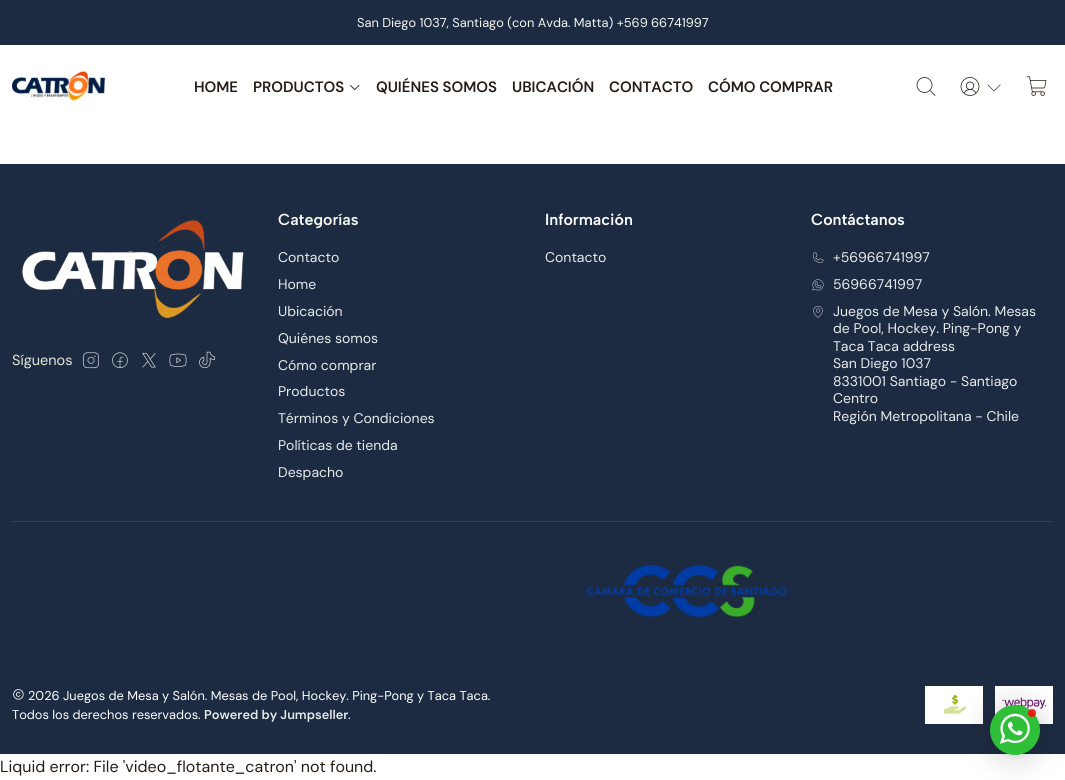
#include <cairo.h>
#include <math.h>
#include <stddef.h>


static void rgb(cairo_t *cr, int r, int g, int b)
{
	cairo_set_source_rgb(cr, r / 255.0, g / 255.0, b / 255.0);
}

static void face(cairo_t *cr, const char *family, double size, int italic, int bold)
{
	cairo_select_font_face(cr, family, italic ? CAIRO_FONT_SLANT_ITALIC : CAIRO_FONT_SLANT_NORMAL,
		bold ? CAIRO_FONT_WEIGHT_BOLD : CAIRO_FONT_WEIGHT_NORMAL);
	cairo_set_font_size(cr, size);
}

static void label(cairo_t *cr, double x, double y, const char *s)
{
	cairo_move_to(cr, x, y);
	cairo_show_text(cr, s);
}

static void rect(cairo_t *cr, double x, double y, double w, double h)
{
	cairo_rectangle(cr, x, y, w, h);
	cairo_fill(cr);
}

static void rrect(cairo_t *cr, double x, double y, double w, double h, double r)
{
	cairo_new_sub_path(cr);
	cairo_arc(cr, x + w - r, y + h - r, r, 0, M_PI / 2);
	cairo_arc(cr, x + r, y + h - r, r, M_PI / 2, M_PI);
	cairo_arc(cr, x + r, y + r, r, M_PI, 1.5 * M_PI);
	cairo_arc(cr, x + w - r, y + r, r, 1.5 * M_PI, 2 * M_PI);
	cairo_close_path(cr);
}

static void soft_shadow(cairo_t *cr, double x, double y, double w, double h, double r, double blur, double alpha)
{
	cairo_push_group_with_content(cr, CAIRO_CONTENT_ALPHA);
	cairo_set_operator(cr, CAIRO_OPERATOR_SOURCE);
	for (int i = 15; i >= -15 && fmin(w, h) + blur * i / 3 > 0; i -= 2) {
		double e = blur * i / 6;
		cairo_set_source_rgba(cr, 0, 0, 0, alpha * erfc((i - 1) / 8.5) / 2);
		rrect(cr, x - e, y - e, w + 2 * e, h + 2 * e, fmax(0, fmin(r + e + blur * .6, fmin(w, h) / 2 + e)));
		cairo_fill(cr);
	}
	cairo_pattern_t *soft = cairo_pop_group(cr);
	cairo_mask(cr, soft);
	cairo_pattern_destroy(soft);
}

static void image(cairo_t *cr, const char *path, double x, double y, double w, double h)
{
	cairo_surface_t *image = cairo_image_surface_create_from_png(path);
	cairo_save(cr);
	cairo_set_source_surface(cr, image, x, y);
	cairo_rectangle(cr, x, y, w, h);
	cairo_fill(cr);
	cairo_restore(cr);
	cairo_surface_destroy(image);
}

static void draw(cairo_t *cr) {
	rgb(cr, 255, 255, 255);
	cairo_paint(cr);
	rgb(cr, 29, 43, 66);
	rect(cr, 0, 0, 1065, 45);
	face(cr, "DM Sans", 12.8, 0, 0);
	rgb(cr, 247, 247, 242);
	label(cr, 357, 27, "San Diego 1037, Santiago (con Avda. Matta) +569 66741997");
	image(cr, "image0.png", 12, 71, 94, 30);
	face(cr, "DM Sans SemiBold", 15, 0, 0);
	rgb(cr, 38, 28, 21);
	label(cr, 194, 92, "HOME");
	label(cr, 253, 92, "PRODUCTOS");
	image(cr, "image1.png", 350, 85, 10, 5);
	label(cr, 376, 92, "QUIÉNES SOMOS");
	label(cr, 512, 92, "UBICACIÓN");
	label(cr, 609, 92, "CONTACTO");
	label(cr, 708, 92, "CÓMO COMPRAR");
	image(cr, "image2.png", 916, 77, 20, 19);
	image(cr, "image3.png", 960, 77, 20, 19);
	image(cr, "image4.png", 987, 84, 14, 8);
	image(cr, "image5.png", 1026, 76, 21, 20);
	rgb(cr, 29, 43, 66);
	rect(cr, 0, 164, 1065, 590);
	image(cr, "image6.png", 22, 220, 222, 99);
	face(cr, "DM Sans", 14.5, 0, 0);
	rgb(cr, 232, 232, 217);
	label(cr, 12, 365, "Síguenos");
	image(cr, "image7.png", 83, 352, 16, 17);
	image(cr, "image8.png", 112, 352, 16, 16);
	image(cr, "image9.png", 142, 353, 14, 15);
	image(cr, "image10.png", 169, 353, 18, 14);
	image(cr, "image11.png", 199, 351, 16, 18);
	face(cr, "Albert Sans SemiBold", 16, 0, 0);
	rgb(cr, 247, 247, 242);
	label(cr, 278, 225, "Categorías");
	face(cr, "DM Sans", 14, 0, 0);
	rgb(cr, 232, 234, 236);
	label(cr, 278, 262, "Contacto");
	label(cr, 278, 289, "Home");
	label(cr, 278, 316, "Ubicación");
	label(cr, 278, 343, "Quiénes somos");
	label(cr, 278, 370, "Cómo comprar");
	label(cr, 278, 396, "Productos");
	label(cr, 278, 423, "Términos y Condiciones");
	label(cr, 278, 450, "Políticas de tienda");
	label(cr, 278, 477, "Despacho");
	face(cr, "Albert Sans SemiBold", 16, 0, 0);
	rgb(cr, 255, 255, 255);
	label(cr, 545, 225, "Información");
	face(cr, "DM Sans", 14, 0, 0);
	rgb(cr, 232, 234, 236);
	label(cr, 545, 262, "Contacto");
	face(cr, "Albert Sans SemiBold", 16, 0, 0);
	rgb(cr, 255, 255, 255);
	label(cr, 811, 225, "Contáctanos");
	image(cr, "image12.png", 813, 252, 11, 11);
	face(cr, "DM Sans", 14, 0, 0);
	rgb(cr, 232, 234, 236);
	label(cr, 833, 262, "+56966741997");
	image(cr, "image13.png", 812, 279, 12, 12);
	label(cr, 833, 289, "56966741997");
	image(cr, "image14.png", 813, 306, 10, 12);
	label(cr, 833, 316, "Juegos de Mesa y Salón. Mesas");
	label(cr, 833, 333, "de Pool, Hockey. Ping-Pong y");
	label(cr, 833, 351, "Taca Taca address");
	label(cr, 833, 368, "San Diego 1037");
	label(cr, 833, 386, "8331001 Santiago - Santiago");
	label(cr, 833, 403, "Centro");
	label(cr, 833, 421, "Región Metropolitana - Chile");
	rgb(cr, 51, 63, 84);
	rect(cr, 12, 521, 1041, 1);
	image(cr, "image15.png", 587, 565, 200, 53);
	image(cr, "image16.png", 13, 689, 11, 11);
	face(cr, "DM Sans", 12.8, 0, 0);
	rgb(cr, 255, 255, 255);
	label(cr, 28, 700, "2026 Juegos de Mesa y Salón. Mesas de Pool, Hockey. Ping-Pong y Taca Taca.");
	label(cr, 12, 719, "Todos los derechos reservados.");
	label(cr, 348, 719, ".");
	face(cr, "DM Sans SemiBold", 12.8, 0, 0);
	rgb(cr, 232, 234, 236);
	label(cr, 204, 719, "Powered by Jumpseller");
	rgb(cr, 255, 255, 255);
	rect(cr, 925, 686, 58, 38);
	image(cr, "image17.png", 943, 694, 24, 20);
	rect(cr, 995, 686, 58, 38);
	image(cr, "image18.png", 1002, 697, 44, 15);
	face(cr, "DM Sans", 16, 0, 0);
	rgb(cr, 38, 28, 21);
	label(cr, 0, 772, "Liquid error: File 'video_flotante_catron' not found.");
	rgb(cr, 0, 0, 0);
	soft_shadow(cr, 990, 707, 50, 50, 25, 16, 0.16);
	soft_shadow(cr, 990, 706, 50, 50, 25, 3, 0.06);
	image(cr, "image19.png", 990, 705, 50, 50);
	cairo_set_source_rgba(cr, 1, 0, 0, 0.85);
	cairo_arc(cr, 1032, 713, 4, 0, 2 * M_PI);
	cairo_fill(cr);
}

int main(void) {
	cairo_surface_t *surface = cairo_image_surface_create(CAIRO_FORMAT_RGB24, 1065, 780);
	cairo_t *cr = cairo_create(surface);
	cairo_font_options_t *options = cairo_font_options_create();
	cairo_font_options_set_hint_metrics(options, CAIRO_HINT_METRICS_OFF);
	cairo_font_options_set_hint_style(options, CAIRO_HINT_STYLE_NONE);
	cairo_set_font_options(cr, options);
	cairo_set_miter_limit(cr, 4);
	draw(cr);
	cairo_surface_write_to_png(surface, "render.png");
	cairo_font_options_destroy(options);
	cairo_destroy(cr);
	cairo_surface_destroy(surface);
	return 0;
}
